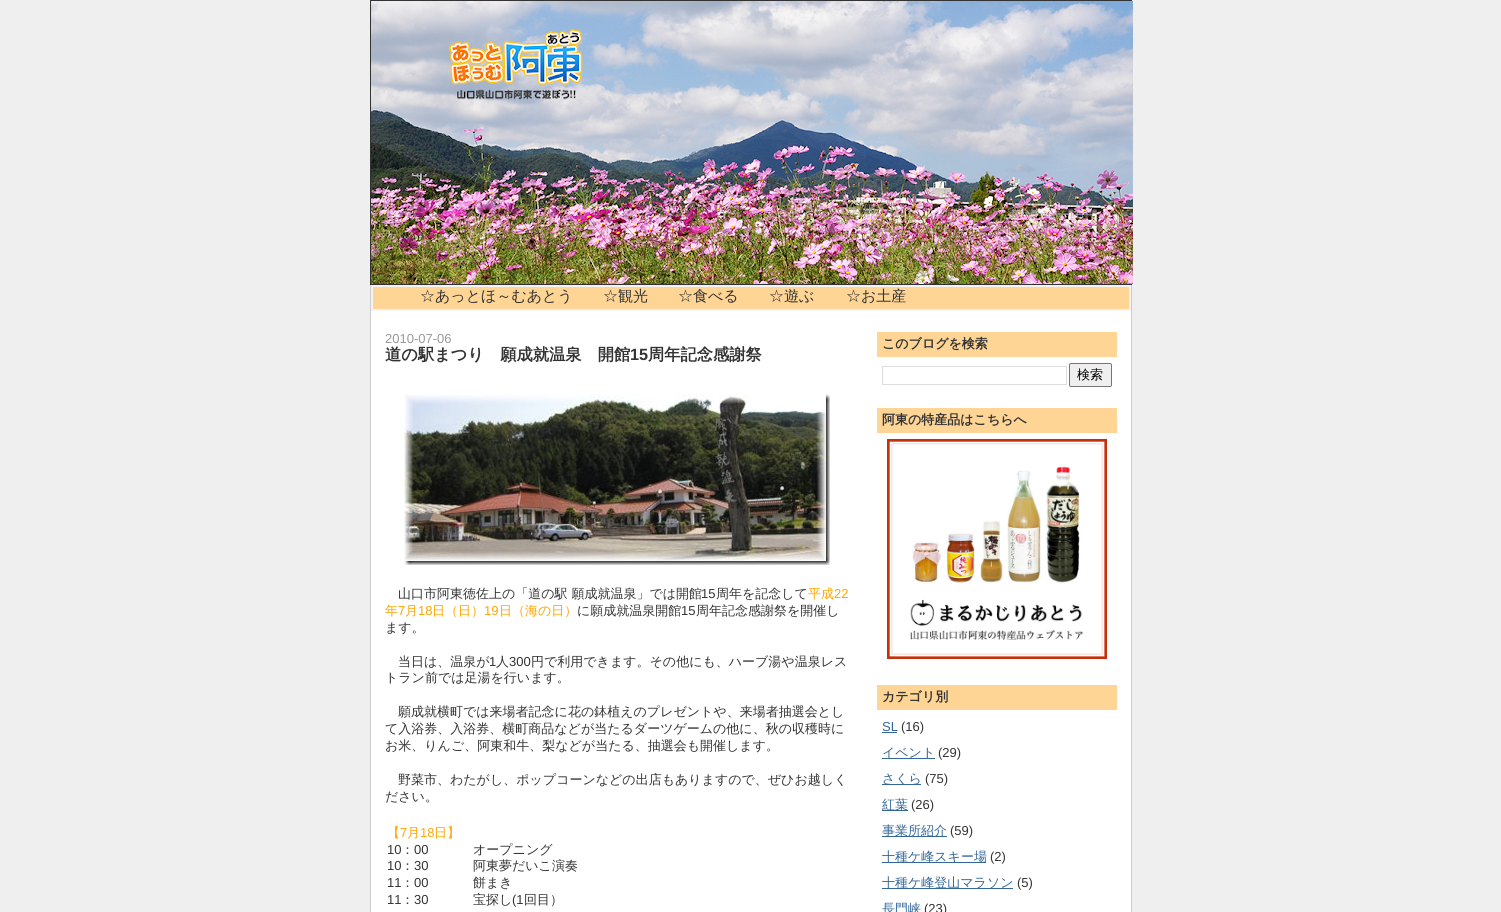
#include <cairo.h>
#include <math.h>
#include <stddef.h>


static void rgb(cairo_t *cr, int r, int g, int b)
{
	cairo_set_source_rgb(cr, r / 255.0, g / 255.0, b / 255.0);
}

static void face(cairo_t *cr, const char *family, double size, int italic, int bold)
{
	cairo_select_font_face(cr, family, italic ? CAIRO_FONT_SLANT_ITALIC : CAIRO_FONT_SLANT_NORMAL,
		bold ? CAIRO_FONT_WEIGHT_BOLD : CAIRO_FONT_WEIGHT_NORMAL);
	cairo_set_font_size(cr, size);
}

static void label(cairo_t *cr, double x, double y, const char *s)
{
	cairo_move_to(cr, x, y);
	cairo_show_text(cr, s);
}

static void rect(cairo_t *cr, double x, double y, double w, double h)
{
	cairo_rectangle(cr, x, y, w, h);
	cairo_fill(cr);
}

static void rrect(cairo_t *cr, double x, double y, double w, double h, double r)
{
	cairo_new_sub_path(cr);
	cairo_arc(cr, x + w - r, y + h - r, r, 0, M_PI / 2);
	cairo_arc(cr, x + r, y + h - r, r, M_PI / 2, M_PI);
	cairo_arc(cr, x + r, y + r, r, M_PI, 1.5 * M_PI);
	cairo_arc(cr, x + w - r, y + r, r, 1.5 * M_PI, 2 * M_PI);
	cairo_close_path(cr);
}

static void image(cairo_t *cr, const char *path, double x, double y, double w, double h)
{
	cairo_surface_t *image = cairo_image_surface_create_from_png(path);
	cairo_save(cr);
	cairo_set_source_surface(cr, image, x, y);
	cairo_rectangle(cr, x, y, w, h);
	cairo_fill(cr);
	cairo_restore(cr);
	cairo_surface_destroy(image);
}

static void draw(cairo_t *cr) {
	rgb(cr, 239, 239, 239);
	cairo_paint(cr);
	rgb(cr, 51, 51, 51);
	rect(cr, 370, 0, 762, 285);
	image(cr, "image0.png", 371, 1, 762, 283);
	rgb(cr, 255, 255, 255);
	rect(cr, 371, 311, 760, 601);
	rgb(cr, 204, 204, 204);
	rect(cr, 1131, 285, 1, 627);
	rect(cr, 370, 285, 1, 627);
	rgb(cr, 255, 213, 149);
	cairo_rectangle(cr, 372, 286, 758, 24);
	cairo_fill_preserve(cr);
	rgb(cr, 243, 243, 243);
	cairo_stroke(cr);
	face(cr, "WenQuanYi Zen Hei Medium", 15, 0, 0);
	rgb(cr, 51, 51, 51);
	label(cr, 420, 301, "☆あっとほ～むあとう");
	label(cr, 603, 301, "☆観光");
	label(cr, 678, 301, "☆食べる");
	label(cr, 769, 301, "☆遊ぶ");
	label(cr, 846, 301, "☆お土産");
	face(cr, "Liberation Sans", 13, 0, 0);
	rgb(cr, 153, 153, 153);
	label(cr, 385, 343, "2010-07-06");
	face(cr, "WenQuanYi Zen Hei", 16.25, 0, 1);
	rgb(cr, 51, 51, 51);
	label(cr, 385, 360, "道の駅まつり　願成就温泉　開館");
	face(cr, "Liberation Sans", 16.25, 0, 1);
	label(cr, 630, 360, "15");
	face(cr, "WenQuanYi Zen Hei", 16.25, 0, 1);
	label(cr, 648, 360, "周年記念感謝祭");
	image(cr, "image1.png", 404, 394, 426, 171);
	face(cr, "WenQuanYi Zen Hei Medium", 13, 0, 0);
	label(cr, 398, 598, "山口市阿東徳佐上の「道の駅 願成就温泉」では開館");
	face(cr, "Liberation Sans", 13, 0, 0);
	label(cr, 701, 598, "15");
	face(cr, "WenQuanYi Zen Hei Medium", 13, 0, 0);
	label(cr, 716, 598, "周年を記念して");
	rgb(cr, 255, 165, 0);
	label(cr, 808, 598, "平成");
	face(cr, "Liberation Sans", 13, 0, 0);
	label(cr, 834, 598, "22");
	face(cr, "WenQuanYi Zen Hei Medium", 13, 0, 0);
	label(cr, 385, 615, "年");
	face(cr, "Liberation Sans", 13, 0, 0);
	label(cr, 398, 615, "7");
	face(cr, "WenQuanYi Zen Hei Medium", 13, 0, 0);
	label(cr, 405, 615, "月");
	face(cr, "Liberation Sans", 13, 0, 0);
	label(cr, 418, 615, "18");
	face(cr, "WenQuanYi Zen Hei Medium", 13, 0, 0);
	label(cr, 432, 615, "日（日）");
	face(cr, "Liberation Sans", 13, 0, 0);
	label(cr, 484, 615, "19");
	face(cr, "WenQuanYi Zen Hei Medium", 13, 0, 0);
	label(cr, 499, 615, "日（海の日）");
	rgb(cr, 51, 51, 51);
	label(cr, 577, 615, "に願成就温泉開館");
	face(cr, "Liberation Sans", 13, 0, 0);
	label(cr, 681, 615, "15");
	face(cr, "WenQuanYi Zen Hei Medium", 13, 0, 0);
	label(cr, 696, 615, "周年記念感謝祭を開催し");
	label(cr, 385, 632, "ます。");
	label(cr, 398, 666, "当日は、温泉が");
	face(cr, "Liberation Sans", 13, 0, 0);
	label(cr, 489, 666, "1");
	face(cr, "WenQuanYi Zen Hei Medium", 13, 0, 0);
	label(cr, 496, 666, "人");
	face(cr, "Liberation Sans", 13, 0, 0);
	label(cr, 509, 666, "300");
	face(cr, "WenQuanYi Zen Hei Medium", 13, 0, 0);
	label(cr, 531, 666, "円で利用できます。その他にも、ハーブ湯や温泉レス");
	label(cr, 385, 682, "トラン前では足湯を行います。");
	label(cr, 398, 716, "願成就横町では来場者記念に花の鉢植えのプレゼントや、来場者抽選会とし");
	label(cr, 385, 733, "て入浴券、入浴券、横町商品などが当たるダーツゲームの他に、秋の収穫時に");
	label(cr, 385, 750, "お米、りんご、阿東和牛、梨などが当たる、抽選会も開催します。");
	label(cr, 398, 784, "野菜市、わたがし、ポップコーンなどの出店もありますので、ぜひお越しく");
	label(cr, 385, 801, "ださい。");
	rgb(cr, 255, 165, 0);
	label(cr, 387, 837, "【");
	face(cr, "Liberation Sans", 13, 0, 0);
	label(cr, 400, 837, "7");
	face(cr, "WenQuanYi Zen Hei Medium", 13, 0, 0);
	label(cr, 407, 837, "月");
	face(cr, "Liberation Sans", 13, 0, 0);
	label(cr, 420, 837, "18");
	face(cr, "WenQuanYi Zen Hei Medium", 13, 0, 0);
	label(cr, 434, 837, "日】");
	face(cr, "Liberation Sans", 13, 0, 0);
	rgb(cr, 51, 51, 51);
	label(cr, 387, 854, "10");
	face(cr, "WenQuanYi Zen Hei Medium", 13, 0, 0);
	label(cr, 401, 854, "：");
	face(cr, "Liberation Sans", 13, 0, 0);
	label(cr, 414, 854, "00");
	label(cr, 387, 870, "10");
	face(cr, "WenQuanYi Zen Hei Medium", 13, 0, 0);
	label(cr, 401, 870, "：");
	face(cr, "Liberation Sans", 13, 0, 0);
	label(cr, 414, 870, "30");
	label(cr, 387, 887, "11");
	face(cr, "WenQuanYi Zen Hei Medium", 13, 0, 0);
	label(cr, 401, 887, "：");
	face(cr, "Liberation Sans", 13, 0, 0);
	label(cr, 414, 887, "00");
	label(cr, 387, 904, "11");
	face(cr, "WenQuanYi Zen Hei Medium", 13, 0, 0);
	label(cr, 401, 904, "：");
	face(cr, "Liberation Sans", 13, 0, 0);
	label(cr, 414, 904, "30");
	face(cr, "WenQuanYi Zen Hei Medium", 13, 0, 0);
	label(cr, 473, 854, "オープニング");
	label(cr, 473, 870, "阿東夢だいこ演奏");
	label(cr, 473, 887, "餅まき");
	label(cr, 473, 904, "宝探し");
	face(cr, "Liberation Sans", 13, 0, 0);
	label(cr, 512, 904, "(1");
	face(cr, "WenQuanYi Zen Hei Medium", 13, 0, 0);
	label(cr, 524, 904, "回目）");
	rgb(cr, 255, 213, 149);
	rect(cr, 877, 332, 240, 25);
	face(cr, "WenQuanYi Zen Hei", 13, 0, 1);
	rgb(cr, 51, 51, 51);
	label(cr, 882, 348, "このブログを検索");
	cairo_rectangle(cr, 882.5, 366.5, 184, 18);
	rgb(cr, 221, 221, 221);
	cairo_set_line_width(cr, 1);
	cairo_stroke(cr);
	rgb(cr, 239, 239, 239);
	rrect(cr, 1069.5, 363.5, 42, 23, 1.5);
	cairo_fill_preserve(cr);
	rgb(cr, 118, 118, 118);
	cairo_stroke(cr);
	face(cr, "WenQuanYi Zen Hei Medium", 13, 0, 0);
	rgb(cr, 0, 0, 0);
	label(cr, 1077, 379, "検索");
	rgb(cr, 255, 213, 149);
	rect(cr, 877, 408, 240, 25);
	face(cr, "WenQuanYi Zen Hei", 13, 0, 1);
	rgb(cr, 51, 51, 51);
	label(cr, 882, 424, "阿東の特産品はこちらへ");
	image(cr, "image2.png", 887, 439, 220, 220);
	rgb(cr, 255, 213, 149);
	rect(cr, 877, 685, 240, 25);
	rgb(cr, 51, 51, 51);
	label(cr, 882, 701, "カテゴリ別");
	face(cr, "Liberation Sans", 13, 0, 0);
	rgb(cr, 51, 102, 153);
	label(cr, 882, 731, "SL");
	rect(cr, 882, 732, 15, 1);
	rgb(cr, 51, 51, 51);
	label(cr, 901, 731, "(16)");
	rgb(cr, 51, 102, 153);
	rect(cr, 882, 758, 53, 1);
	face(cr, "WenQuanYi Zen Hei Medium", 13, 0, 0);
	label(cr, 882, 757, "イベント");
	face(cr, "Liberation Sans", 13, 0, 0);
	rgb(cr, 51, 51, 51);
	label(cr, 938, 757, "(29)");
	rgb(cr, 51, 102, 153);
	rect(cr, 882, 784, 39, 1);
	face(cr, "WenQuanYi Zen Hei Medium", 13, 0, 0);
	label(cr, 882, 783, "さくら");
	face(cr, "Liberation Sans", 13, 0, 0);
	rgb(cr, 51, 51, 51);
	label(cr, 925, 783, "(75)");
	rgb(cr, 51, 102, 153);
	rect(cr, 882, 810, 26, 1);
	face(cr, "WenQuanYi Zen Hei Medium", 13, 0, 0);
	label(cr, 882, 809, "紅葉");
	face(cr, "Liberation Sans", 13, 0, 0);
	rgb(cr, 51, 51, 51);
	label(cr, 911, 809, "(26)");
	rgb(cr, 51, 102, 153);
	rect(cr, 882, 836, 65, 1);
	face(cr, "WenQuanYi Zen Hei Medium", 13, 0, 0);
	label(cr, 882, 835, "事業所紹介");
	face(cr, "Liberation Sans", 13, 0, 0);
	rgb(cr, 51, 51, 51);
	label(cr, 950, 835, "(59)");
	rgb(cr, 51, 102, 153);
	rect(cr, 882, 862, 104, 1);
	face(cr, "WenQuanYi Zen Hei Medium", 13, 0, 0);
	label(cr, 882, 861, "十種ケ峰スキー場");
	face(cr, "Liberation Sans", 13, 0, 0);
	rgb(cr, 51, 51, 51);
	label(cr, 990, 861, "(2)");
	rgb(cr, 51, 102, 153);
	rect(cr, 882, 888, 131, 1);
	face(cr, "WenQuanYi Zen Hei Medium", 13, 0, 0);
	label(cr, 882, 887, "十種ケ峰登山マラソン");
	face(cr, "Liberation Sans", 13, 0, 0);
	rgb(cr, 51, 51, 51);
	label(cr, 1017, 887, "(5)");
	face(cr, "WenQuanYi Zen Hei Medium", 13, 0, 0);
	rgb(cr, 51, 102, 153);
	label(cr, 882, 913, "長門峡");
	face(cr, "Liberation Sans", 13, 0, 0);
	rgb(cr, 51, 51, 51);
	label(cr, 924, 913, "(23)");
}

int main(void) {
	cairo_surface_t *surface = cairo_image_surface_create(CAIRO_FORMAT_RGB24, 1501, 912);
	cairo_t *cr = cairo_create(surface);
	cairo_font_options_t *options = cairo_font_options_create();
	cairo_font_options_set_hint_metrics(options, CAIRO_HINT_METRICS_OFF);
	cairo_font_options_set_hint_style(options, CAIRO_HINT_STYLE_NONE);
	cairo_set_font_options(cr, options);
	cairo_set_miter_limit(cr, 4);
	draw(cr);
	cairo_surface_write_to_png(surface, "render.png");
	cairo_font_options_destroy(options);
	cairo_destroy(cr);
	cairo_surface_destroy(surface);
	return 0;
}
